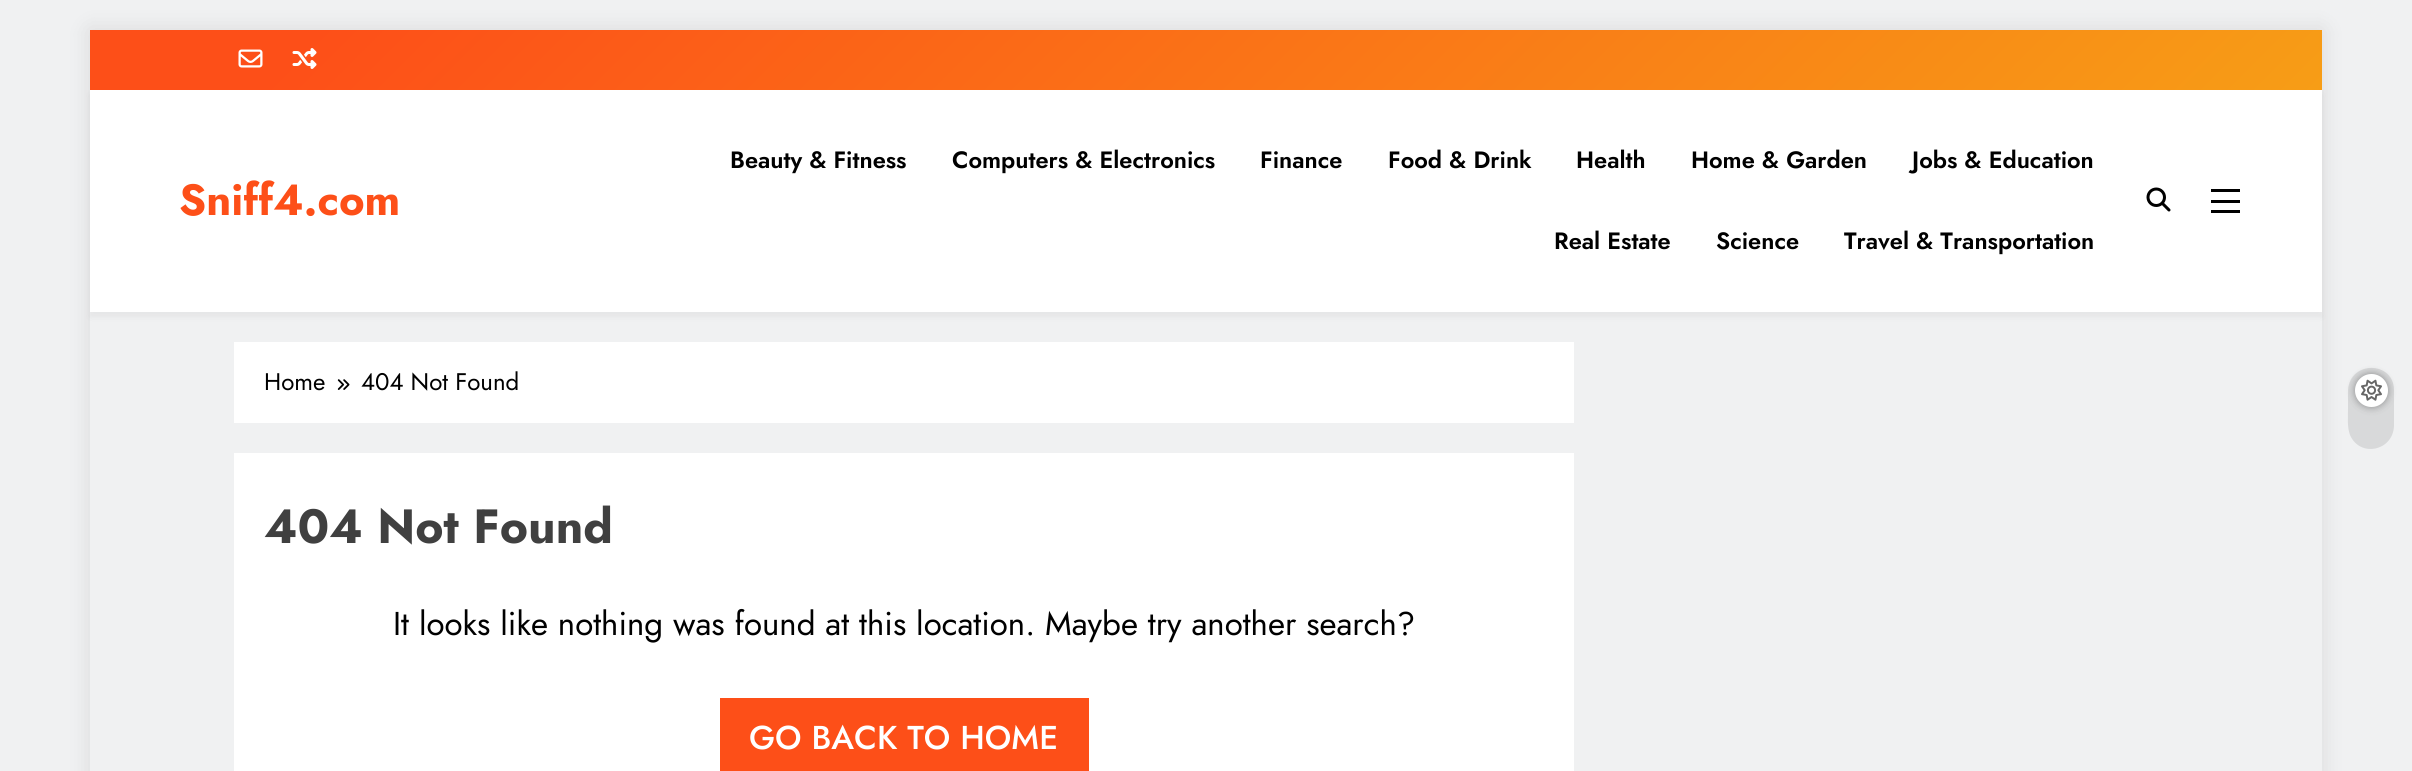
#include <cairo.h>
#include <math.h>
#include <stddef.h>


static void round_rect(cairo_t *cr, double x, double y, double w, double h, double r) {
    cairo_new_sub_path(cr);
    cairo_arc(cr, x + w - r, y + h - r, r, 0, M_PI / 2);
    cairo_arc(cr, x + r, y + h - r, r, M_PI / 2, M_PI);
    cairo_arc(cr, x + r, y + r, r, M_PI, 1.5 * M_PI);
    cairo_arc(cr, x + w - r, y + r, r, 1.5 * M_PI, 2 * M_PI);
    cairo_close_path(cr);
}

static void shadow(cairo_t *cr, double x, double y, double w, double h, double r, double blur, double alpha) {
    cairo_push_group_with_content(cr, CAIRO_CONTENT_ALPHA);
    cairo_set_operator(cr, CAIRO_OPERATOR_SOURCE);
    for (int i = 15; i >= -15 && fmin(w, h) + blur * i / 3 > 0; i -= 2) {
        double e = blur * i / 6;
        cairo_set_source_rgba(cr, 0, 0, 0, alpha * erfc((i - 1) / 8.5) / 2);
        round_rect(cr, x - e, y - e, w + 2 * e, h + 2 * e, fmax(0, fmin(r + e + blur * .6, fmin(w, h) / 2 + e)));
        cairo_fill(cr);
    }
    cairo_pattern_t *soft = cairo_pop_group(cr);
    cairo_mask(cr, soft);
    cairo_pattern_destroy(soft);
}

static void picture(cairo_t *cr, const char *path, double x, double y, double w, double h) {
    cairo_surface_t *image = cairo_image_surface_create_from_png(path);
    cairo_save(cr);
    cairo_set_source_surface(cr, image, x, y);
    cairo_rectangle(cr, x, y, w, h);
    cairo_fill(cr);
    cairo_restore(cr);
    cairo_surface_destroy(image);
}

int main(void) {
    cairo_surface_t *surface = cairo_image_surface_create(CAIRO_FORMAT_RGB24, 2412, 771);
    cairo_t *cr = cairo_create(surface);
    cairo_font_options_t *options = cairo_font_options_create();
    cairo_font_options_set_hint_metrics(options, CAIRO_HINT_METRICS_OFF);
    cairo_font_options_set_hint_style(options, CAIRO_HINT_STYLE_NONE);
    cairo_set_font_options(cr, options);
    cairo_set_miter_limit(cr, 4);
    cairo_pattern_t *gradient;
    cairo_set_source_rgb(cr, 0.941, 0.945, 0.949);
    cairo_paint(cr);
    cairo_save(cr);
    cairo_set_fill_rule(cr, CAIRO_FILL_RULE_EVEN_ODD);
    cairo_new_path(cr);
    cairo_move_to(cr, 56, 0);
    cairo_line_to(cr, 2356, 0);
    cairo_line_to(cr, 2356, 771);
    cairo_line_to(cr, 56, 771);
    cairo_close_path(cr);
    cairo_move_to(cr, 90, 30);
    cairo_line_to(cr, 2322, 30);
    cairo_line_to(cr, 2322, 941);
    cairo_line_to(cr, 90, 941);
    cairo_close_path(cr);
    cairo_clip(cr);
    cairo_set_source_rgb(cr, 0, 0, 0);
    shadow(cr, 90, 30, 2232, 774, 0, 11, 0.1);
    cairo_restore(cr);
    gradient = cairo_pattern_create_linear(633, -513, 1779, 633);
    cairo_pattern_add_color_stop_rgba(gradient, 0.1, 0.992, 0.31, 0.094, 1);
    cairo_pattern_add_color_stop_rgba(gradient, 1, 0.969, 0.616, 0.086, 1);
    cairo_set_source(cr, gradient);
    cairo_pattern_destroy(gradient);
    cairo_rectangle(cr, 90, 30, 2232, 60);
    cairo_fill(cr);
    picture(cr, "img1.png", 238, 49, 25, 19);
    picture(cr, "img2.png", 292, 48, 25, 21);
    cairo_set_source_rgb(cr, 0, 0, 0);
    shadow(cr, 90, 95, 2232, 222, 0, 3, 0.05);
    cairo_set_source_rgb(cr, 1, 1, 1);
    cairo_rectangle(cr, 90, 90, 2232, 222);
    cairo_fill(cr);
    cairo_select_font_face(cr, "Jost", CAIRO_FONT_SLANT_NORMAL, CAIRO_FONT_WEIGHT_BOLD);
    cairo_set_font_size(cr, 43.5);
    cairo_set_source_rgb(cr, 0.992, 0.31, 0.094);
    cairo_move_to(cr, 179, 215);
    cairo_show_text(cr, "Sniff4.com");
    cairo_select_font_face(cr, "Jost SemiBold", CAIRO_FONT_SLANT_NORMAL, CAIRO_FONT_WEIGHT_NORMAL);
    cairo_set_font_size(cr, 23.6);
    cairo_set_source_rgb(cr, 0, 0, 0);
    cairo_move_to(cr, 730, 168);
    cairo_show_text(cr, "Beauty & Fitness");
    cairo_move_to(cr, 952, 168);
    cairo_show_text(cr, "Computers & Electronics");
    cairo_move_to(cr, 1260, 168);
    cairo_show_text(cr, "Finance");
    cairo_move_to(cr, 1388, 168);
    cairo_show_text(cr, "Food & Drink");
    cairo_move_to(cr, 1576, 168);
    cairo_show_text(cr, "Health");
    cairo_move_to(cr, 1691, 168);
    cairo_show_text(cr, "Home & Garden");
    cairo_move_to(cr, 1912, 168);
    cairo_show_text(cr, "Jobs & Education");
    cairo_move_to(cr, 1554, 249);
    cairo_show_text(cr, "Real Estate");
    cairo_move_to(cr, 1716, 249);
    cairo_show_text(cr, "Science");
    cairo_move_to(cr, 1844, 249);
    cairo_show_text(cr, "Travel & Transportation");
    picture(cr, "img3.png", 2146, 187, 25, 25);
    cairo_rectangle(cr, 2211, 189, 29, 3);
    cairo_fill(cr);
    cairo_rectangle(cr, 2211, 200, 29, 3);
    cairo_fill(cr);
    cairo_rectangle(cr, 2211, 210, 29, 3);
    cairo_fill(cr);
    cairo_set_source_rgb(cr, 0.847, 0.851, 0.855);
    cairo_new_path(cr);
    cairo_move_to(cr, 2394, 390);
    cairo_line_to(cr, 2394, 426);
    cairo_curve_to(cr, 2393, 451, 2360, 458, 2350, 435);
    cairo_curve_to(cr, 2347, 427, 2348, 417, 2348, 408);
    cairo_line_to(cr, 2348, 390);
    cairo_curve_to(cr, 2350, 360, 2394, 361, 2394, 390);
    cairo_close_path(cr);
    cairo_fill(cr);
    cairo_set_source_rgb(cr, 0, 0, 0);
    shadow(cr, 2355, 374, 33, 33, 16.5, 4, 0.35);
    cairo_set_source_rgb(cr, 1, 1, 1);
    cairo_arc(cr, 2371.5, 390.5, 16.5, 0, 2 * M_PI);
    cairo_fill(cr);
    picture(cr, "img4.png", 2361, 379, 21, 22);
    cairo_rectangle(cr, 234, 342, 1340, 81);
    cairo_fill(cr);
    cairo_select_font_face(cr, "Jost", CAIRO_FONT_SLANT_NORMAL, CAIRO_FONT_WEIGHT_NORMAL);
    cairo_set_font_size(cr, 24);
    cairo_set_source_rgb(cr, 0, 0, 0);
    cairo_move_to(cr, 264, 390);
    cairo_show_text(cr, "Home");
    picture(cr, "img5.png", 337, 379, 13, 11);
    cairo_move_to(cr, 361, 390);
    cairo_show_text(cr, "404 Not Found");
    cairo_set_source_rgb(cr, 1, 1, 1);
    cairo_rectangle(cr, 234, 453, 1340, 318);
    cairo_fill(cr);
    cairo_select_font_face(cr, "Jost", CAIRO_FONT_SLANT_NORMAL, CAIRO_FONT_WEIGHT_BOLD);
    cairo_set_font_size(cr, 48);
    cairo_set_source_rgb(cr, 0.251, 0.251, 0.251);
    cairo_move_to(cr, 264, 543);
    cairo_show_text(cr, "404 Not Found");
    cairo_select_font_face(cr, "Jost", CAIRO_FONT_SLANT_NORMAL, CAIRO_FONT_WEIGHT_NORMAL);
    cairo_set_font_size(cr, 33);
    cairo_set_source_rgb(cr, 0, 0, 0);
    cairo_move_to(cr, 393, 635);
    cairo_show_text(cr, "It looks like nothing was found at this location. Maybe try another search?");
    cairo_set_source_rgb(cr, 0.992, 0.31, 0.094);
    cairo_rectangle(cr, 720, 698, 369, 73);
    cairo_fill(cr);
    cairo_select_font_face(cr, "Jost Medium", CAIRO_FONT_SLANT_NORMAL, CAIRO_FONT_WEIGHT_NORMAL);
    cairo_set_source_rgb(cr, 1, 1, 1);
    cairo_move_to(cr, 749, 749);
    cairo_show_text(cr, "GO BACK TO HOME");
    cairo_surface_write_to_png(surface, "page.png");
    cairo_font_options_destroy(options);
    cairo_destroy(cr);
    cairo_surface_destroy(surface);
    return 0;
}
